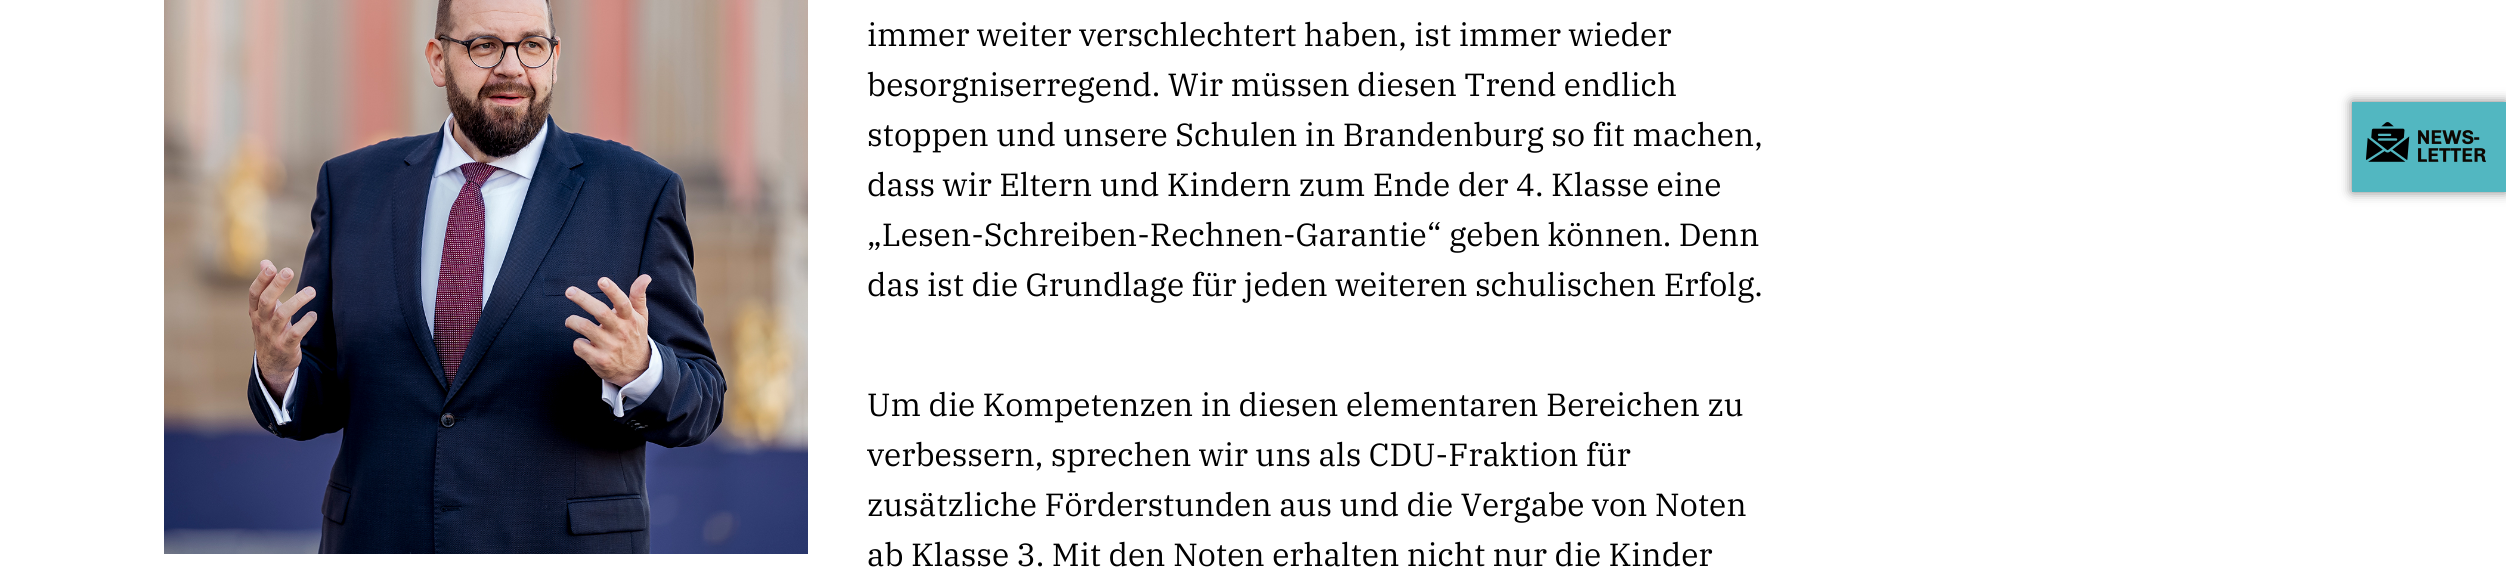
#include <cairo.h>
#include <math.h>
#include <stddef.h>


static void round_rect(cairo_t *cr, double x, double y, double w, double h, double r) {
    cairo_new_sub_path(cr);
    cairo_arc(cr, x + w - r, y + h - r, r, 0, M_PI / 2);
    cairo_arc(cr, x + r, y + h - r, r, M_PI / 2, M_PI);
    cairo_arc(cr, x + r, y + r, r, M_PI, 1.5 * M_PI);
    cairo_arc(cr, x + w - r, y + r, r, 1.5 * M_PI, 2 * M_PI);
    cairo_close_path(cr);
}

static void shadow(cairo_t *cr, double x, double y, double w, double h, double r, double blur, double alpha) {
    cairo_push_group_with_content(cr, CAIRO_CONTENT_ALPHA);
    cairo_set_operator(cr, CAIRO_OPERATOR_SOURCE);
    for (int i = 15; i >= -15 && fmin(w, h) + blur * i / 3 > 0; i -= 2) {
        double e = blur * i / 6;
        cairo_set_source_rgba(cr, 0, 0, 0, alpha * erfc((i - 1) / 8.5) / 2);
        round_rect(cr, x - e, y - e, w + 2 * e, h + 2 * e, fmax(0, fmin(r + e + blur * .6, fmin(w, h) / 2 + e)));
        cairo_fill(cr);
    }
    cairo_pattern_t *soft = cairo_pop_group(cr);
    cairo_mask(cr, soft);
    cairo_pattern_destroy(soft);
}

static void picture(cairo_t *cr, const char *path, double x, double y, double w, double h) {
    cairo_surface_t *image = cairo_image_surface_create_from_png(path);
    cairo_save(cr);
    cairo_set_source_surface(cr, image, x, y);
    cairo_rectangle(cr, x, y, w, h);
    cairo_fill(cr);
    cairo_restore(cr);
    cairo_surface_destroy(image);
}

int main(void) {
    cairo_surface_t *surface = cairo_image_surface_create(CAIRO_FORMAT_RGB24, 2506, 581);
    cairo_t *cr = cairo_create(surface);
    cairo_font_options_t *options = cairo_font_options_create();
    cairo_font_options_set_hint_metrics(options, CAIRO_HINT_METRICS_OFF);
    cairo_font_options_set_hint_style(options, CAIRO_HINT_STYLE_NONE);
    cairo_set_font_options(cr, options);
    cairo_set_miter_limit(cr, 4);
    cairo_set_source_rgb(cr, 1, 1, 1);
    cairo_paint(cr);
    picture(cr, "img1.png", 164, 0, 644, 554);
    cairo_select_font_face(cr, "IBM Plex Serif", CAIRO_FONT_SLANT_NORMAL, CAIRO_FONT_WEIGHT_NORMAL);
    cairo_set_font_size(cr, 32);
    cairo_set_source_rgb(cr, 0, 0, 0);
    cairo_move_to(cr, 867, 46);
    cairo_show_text(cr, "immer weiter verschlechtert haben, ist immer wieder");
    cairo_move_to(cr, 867, 96);
    cairo_show_text(cr, "besorgniserregend. Wir müssen diesen Trend endlich");
    cairo_move_to(cr, 867, 146);
    cairo_show_text(cr, "stoppen und unsere Schulen in Brandenburg so fit machen,");
    cairo_move_to(cr, 867, 196);
    cairo_show_text(cr, "dass wir Eltern und Kindern zum Ende der 4. Klasse eine");
    cairo_move_to(cr, 867, 246);
    cairo_show_text(cr, "„Lesen-Schreiben-Rechnen-Garantie“ geben können. Denn");
    cairo_move_to(cr, 867, 296);
    cairo_show_text(cr, "das ist die Grundlage für jeden weiteren schulischen Erfolg.");
    cairo_move_to(cr, 867, 416);
    cairo_show_text(cr, "Um die Kompetenzen in diesen elementaren Bereichen zu");
    cairo_move_to(cr, 867, 466);
    cairo_show_text(cr, "verbessern, sprechen wir uns als CDU-Fraktion für");
    cairo_move_to(cr, 867, 516);
    cairo_show_text(cr, "zusätzliche Förderstunden aus und die Vergabe von Noten");
    cairo_move_to(cr, 867, 566);
    cairo_show_text(cr, "ab Klasse 3. Mit den Noten erhalten nicht nur die Kinder");
    cairo_set_source_rgb(cr, 0, 0, 0);
    shadow(cr, 2352, 102, 154, 90, 0, 6, 0.5);
    cairo_set_source_rgb(cr, 0.322, 0.718, 0.757);
    cairo_rectangle(cr, 2352, 102, 154, 90);
    cairo_fill(cr);
    picture(cr, "img2.png", 2366, 122, 120, 40);
    cairo_surface_write_to_png(surface, "page.png");
    cairo_font_options_destroy(options);
    cairo_destroy(cr);
    cairo_surface_destroy(surface);
    return 0;
}
